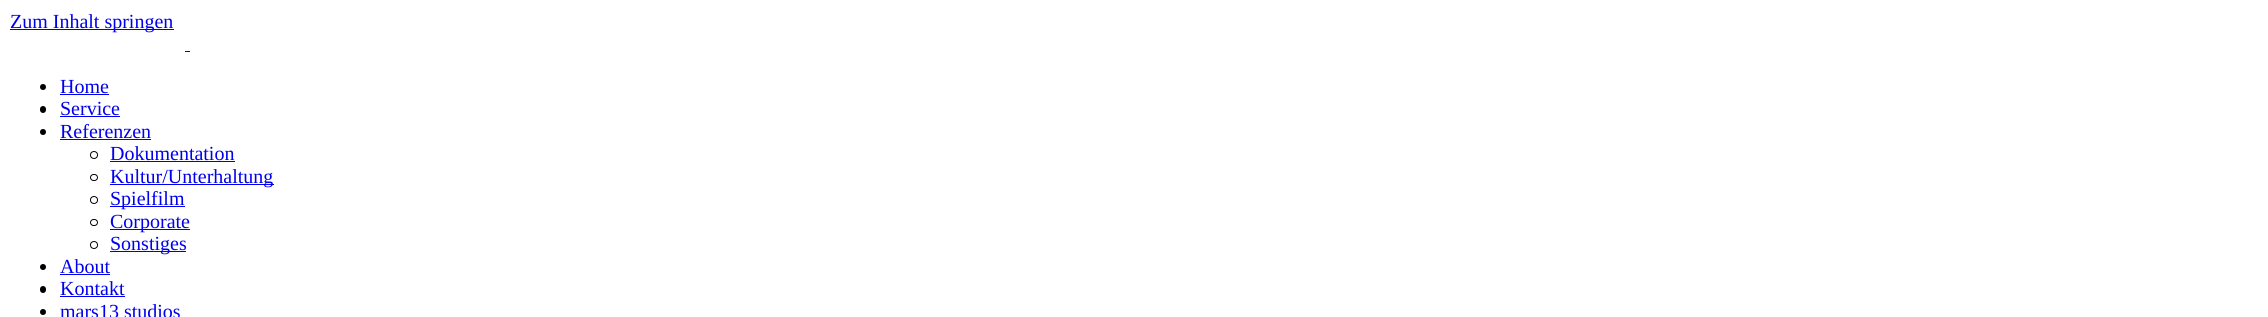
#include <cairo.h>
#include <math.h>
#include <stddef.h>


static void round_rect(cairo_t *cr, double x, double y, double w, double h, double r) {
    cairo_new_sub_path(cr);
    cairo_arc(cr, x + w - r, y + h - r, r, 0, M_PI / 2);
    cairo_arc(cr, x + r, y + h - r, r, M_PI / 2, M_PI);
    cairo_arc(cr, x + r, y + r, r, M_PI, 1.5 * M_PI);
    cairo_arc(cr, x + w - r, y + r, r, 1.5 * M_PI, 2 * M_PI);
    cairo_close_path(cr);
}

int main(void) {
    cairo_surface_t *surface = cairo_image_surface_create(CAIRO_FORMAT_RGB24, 2268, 317);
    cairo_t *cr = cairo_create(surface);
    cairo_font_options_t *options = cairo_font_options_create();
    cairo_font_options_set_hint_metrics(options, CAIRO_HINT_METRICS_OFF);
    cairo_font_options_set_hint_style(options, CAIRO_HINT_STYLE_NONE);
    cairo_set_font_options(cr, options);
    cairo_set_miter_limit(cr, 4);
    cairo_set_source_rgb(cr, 1, 1, 1);
    cairo_paint(cr);
    cairo_set_source_rgb(cr, 0, 0, 0.933);
    cairo_rectangle(cr, 10, 29, 164, 1);
    cairo_fill(cr);
    cairo_select_font_face(cr, "Liberation Serif", CAIRO_FONT_SLANT_NORMAL, CAIRO_FONT_WEIGHT_NORMAL);
    cairo_set_font_size(cr, 20);
    cairo_move_to(cr, 10, 28);
    cairo_show_text(cr, "Zum Inhalt springen");
    cairo_rectangle(cr, 185, 51, 5, 1);
    cairo_fill(cr);
    cairo_set_source_rgb(cr, 0, 0, 0);
    cairo_arc(cr, 43, 87, 3, 0, 2 * M_PI);
    cairo_fill(cr);
    cairo_set_source_rgb(cr, 0, 0, 0.933);
    cairo_move_to(cr, 60, 93);
    cairo_show_text(cr, "Home");
    cairo_rectangle(cr, 60, 94, 49, 1);
    cairo_fill(cr);
    cairo_set_source_rgb(cr, 0, 0, 0);
    round_rect(cr, 40, 106, 6, 7, 3);
    cairo_fill(cr);
    cairo_set_source_rgb(cr, 0, 0, 0.933);
    cairo_move_to(cr, 60, 115);
    cairo_show_text(cr, "Service");
    cairo_rectangle(cr, 60, 116, 60, 1);
    cairo_fill(cr);
    cairo_set_source_rgb(cr, 0, 0, 0);
    cairo_arc(cr, 43, 132, 3, 0, 2 * M_PI);
    cairo_fill(cr);
    cairo_set_source_rgb(cr, 0, 0, 0.933);
    cairo_move_to(cr, 60, 138);
    cairo_show_text(cr, "Referenzen");
    cairo_rectangle(cr, 60, 139, 91, 1);
    cairo_fill(cr);
    cairo_arc(cr, 94, 155, 3.5, 0, 2 * M_PI);
    cairo_set_source_rgb(cr, 0, 0, 0);
    cairo_set_line_width(cr, 1);
    cairo_stroke(cr);
    cairo_set_source_rgb(cr, 0, 0, 0.933);
    cairo_move_to(cr, 110, 160);
    cairo_show_text(cr, "Dokumentation");
    cairo_rectangle(cr, 110, 161, 125, 1);
    cairo_fill(cr);
    round_rect(cr, 90.5, 174.5, 7, 6, 3);
    cairo_set_source_rgb(cr, 0, 0, 0);
    cairo_stroke(cr);
    cairo_set_source_rgb(cr, 0, 0, 0.933);
    cairo_rectangle(cr, 110, 184, 164, 1);
    cairo_fill(cr);
    cairo_move_to(cr, 110, 183);
    cairo_show_text(cr, "Kultur/Unterhaltung");
    cairo_new_path(cr);
    cairo_arc(cr, 94, 200, 3.5, 0, 2 * M_PI);
    cairo_set_source_rgb(cr, 0, 0, 0);
    cairo_stroke(cr);
    cairo_set_source_rgb(cr, 0, 0, 0.933);
    cairo_rectangle(cr, 110, 206, 75, 1);
    cairo_fill(cr);
    cairo_move_to(cr, 110, 205);
    cairo_show_text(cr, "Spielfilm");
    round_rect(cr, 90.5, 219.5, 7, 6, 3);
    cairo_set_source_rgb(cr, 0, 0, 0);
    cairo_stroke(cr);
    cairo_set_source_rgb(cr, 0, 0, 0.933);
    cairo_rectangle(cr, 110, 229, 80, 1);
    cairo_fill(cr);
    cairo_move_to(cr, 110, 228);
    cairo_show_text(cr, "Corporate");
    cairo_new_path(cr);
    cairo_arc(cr, 94, 245, 3.5, 0, 2 * M_PI);
    cairo_set_source_rgb(cr, 0, 0, 0);
    cairo_stroke(cr);
    cairo_set_source_rgb(cr, 0, 0, 0.933);
    cairo_rectangle(cr, 110, 251, 76, 1);
    cairo_fill(cr);
    cairo_move_to(cr, 110, 250);
    cairo_show_text(cr, "Sonstiges");
    cairo_set_source_rgb(cr, 0, 0, 0);
    cairo_new_path(cr);
    cairo_arc(cr, 43, 267, 3, 0, 2 * M_PI);
    cairo_fill(cr);
    cairo_set_source_rgb(cr, 0, 0, 0.933);
    cairo_move_to(cr, 60, 273);
    cairo_show_text(cr, "About");
    cairo_rectangle(cr, 60, 274, 50, 1);
    cairo_fill(cr);
    cairo_set_source_rgb(cr, 0, 0, 0);
    round_rect(cr, 40, 286, 6, 7, 3);
    cairo_fill(cr);
    cairo_set_source_rgb(cr, 0, 0, 0.933);
    cairo_move_to(cr, 60, 295);
    cairo_show_text(cr, "Kontakt");
    cairo_rectangle(cr, 60, 296, 65, 1);
    cairo_fill(cr);
    cairo_set_source_rgb(cr, 0, 0, 0);
    cairo_arc(cr, 43, 312, 3, 0, 2 * M_PI);
    cairo_fill(cr);
    cairo_set_source_rgb(cr, 0, 0, 0.933);
    cairo_move_to(cr, 60, 318);
    cairo_show_text(cr, "mars13 studios");
    cairo_surface_write_to_png(surface, "page.png");
    cairo_font_options_destroy(options);
    cairo_destroy(cr);
    cairo_surface_destroy(surface);
    return 0;
}
